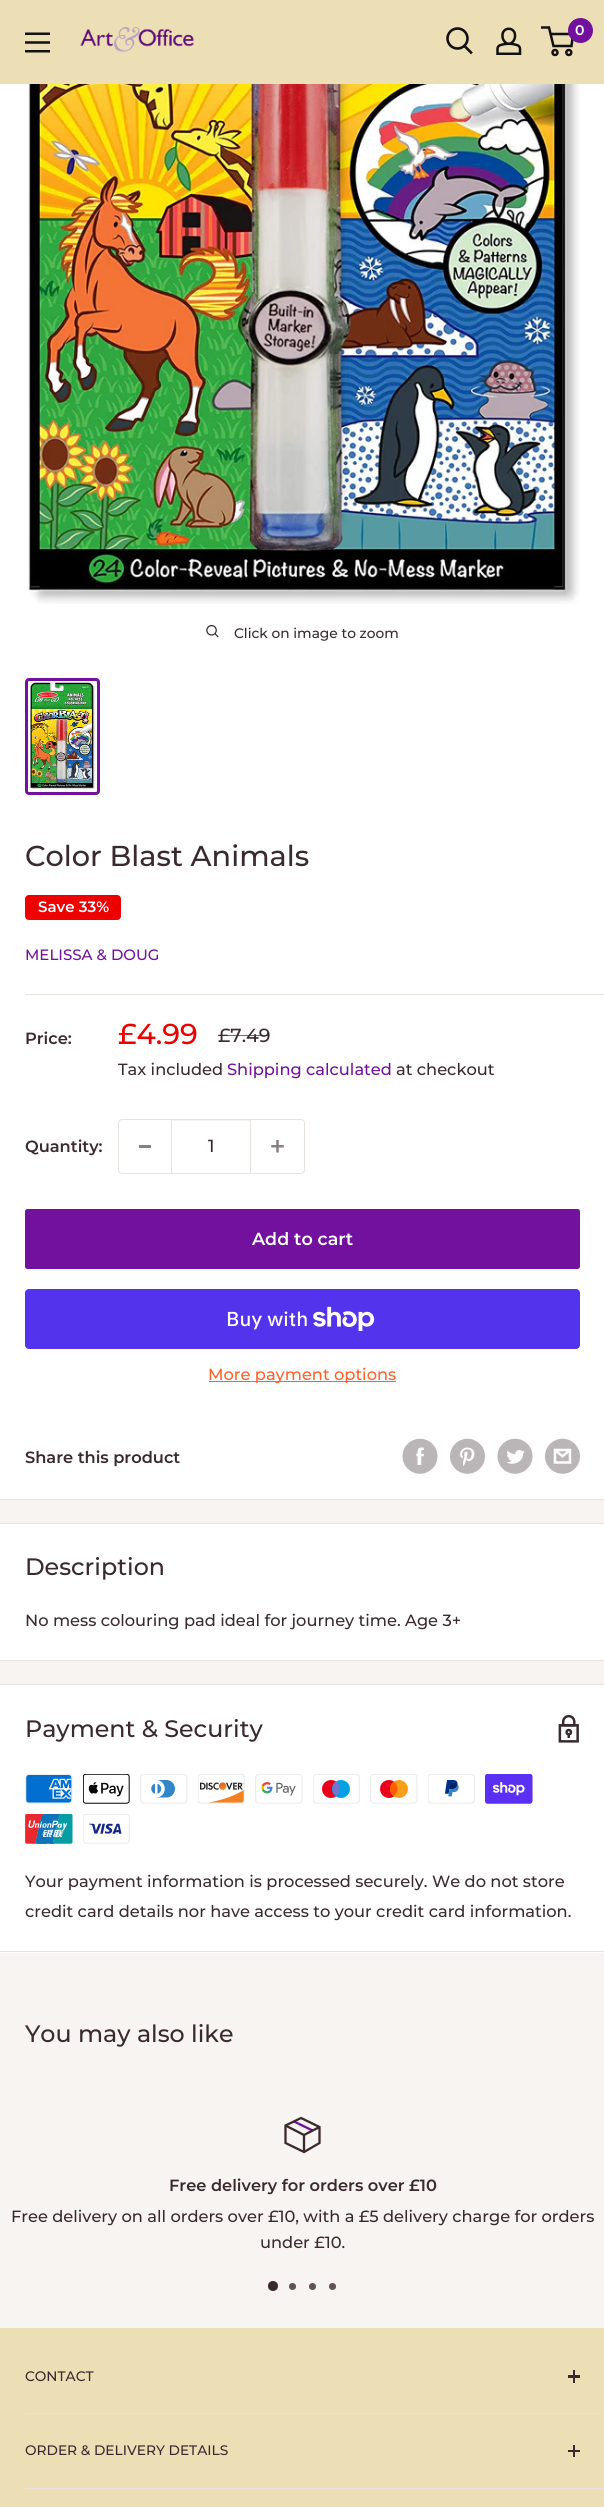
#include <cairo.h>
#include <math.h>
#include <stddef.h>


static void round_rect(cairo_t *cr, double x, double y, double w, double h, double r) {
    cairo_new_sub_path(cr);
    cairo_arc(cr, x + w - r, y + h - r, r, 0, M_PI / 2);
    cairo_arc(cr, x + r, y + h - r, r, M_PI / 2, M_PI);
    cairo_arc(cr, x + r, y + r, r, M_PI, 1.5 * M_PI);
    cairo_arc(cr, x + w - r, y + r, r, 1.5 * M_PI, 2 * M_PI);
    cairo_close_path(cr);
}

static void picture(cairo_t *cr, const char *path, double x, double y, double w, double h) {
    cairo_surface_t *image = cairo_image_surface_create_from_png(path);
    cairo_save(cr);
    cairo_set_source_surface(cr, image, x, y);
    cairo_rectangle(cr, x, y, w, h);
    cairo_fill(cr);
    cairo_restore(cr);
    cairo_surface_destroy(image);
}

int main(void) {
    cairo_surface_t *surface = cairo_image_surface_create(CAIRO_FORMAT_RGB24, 604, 2507);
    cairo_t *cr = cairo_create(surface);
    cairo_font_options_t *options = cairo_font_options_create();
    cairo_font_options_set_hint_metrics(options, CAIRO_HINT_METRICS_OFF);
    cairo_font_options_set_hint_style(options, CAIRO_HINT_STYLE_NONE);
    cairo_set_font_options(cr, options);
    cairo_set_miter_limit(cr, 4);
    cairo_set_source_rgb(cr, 0.969, 0.957, 0.949);
    cairo_paint(cr);
    cairo_set_source_rgb(cr, 0.929, 0.875, 0.71);
    cairo_rectangle(cr, 0, 0, 604, 84);
    cairo_fill(cr);
    picture(cr, "img1.png", 25, 32, 25, 21);
    picture(cr, "img2.png", 80, 26, 114, 26);
    cairo_new_path(cr);
    cairo_move_to(cr, 471, 52.5);
    cairo_line_to(cr, 464.5, 46);
    cairo_set_source_rgb(cr, 0.071, 0.067, 0.067);
    cairo_set_line_width(cr, 2.6);
    cairo_set_line_cap(cr, CAIRO_LINE_CAP_SQUARE);
    cairo_stroke(cr);
    cairo_arc(cr, 457.5, 38.5, 10, 0, 2 * M_PI);
    cairo_set_line_cap(cr, CAIRO_LINE_CAP_BUTT);
    cairo_stroke(cr);
    picture(cr, "img3.png", 496, 27, 26, 28);
    cairo_arc(cr, 555, 52.5, 2.5, 0, 2 * M_PI);
    cairo_set_line_width(cr, 2.5);
    cairo_stroke(cr);
    cairo_arc(cr, 568.8, 52.5, 2.5, 0, 2 * M_PI);
    cairo_stroke(cr);
    cairo_new_path(cr);
    cairo_move_to(cr, 550.5, 34);
    cairo_line_to(cr, 573, 34);
    cairo_line_to(cr, 571.5, 46);
    cairo_line_to(cr, 553.5, 46);
    cairo_line_to(cr, 549, 27.5);
    cairo_line_to(cr, 541, 27.5);
    cairo_stroke(cr);
    cairo_set_source_rgb(cr, 0.443, 0.067, 0.616);
    cairo_arc(cr, 580.5, 30.5, 12.5, 0, 2 * M_PI);
    cairo_fill(cr);
    cairo_select_font_face(cr, "Montserrat SemiBold", CAIRO_FONT_SLANT_NORMAL, CAIRO_FONT_WEIGHT_NORMAL);
    cairo_set_font_size(cr, 14);
    cairo_set_source_rgb(cr, 1, 1, 1);
    cairo_move_to(cr, 575, 35);
    cairo_show_text(cr, "0");
    cairo_rectangle(cr, 0, 84, 604, 1415);
    cairo_fill(cr);
    picture(cr, "img4.png", 28, 84, 552, 520);
    picture(cr, "img5.png", 206, 625, 13, 13);
    cairo_select_font_face(cr, "Montserrat Medium", CAIRO_FONT_SLANT_NORMAL, CAIRO_FONT_WEIGHT_NORMAL);
    cairo_set_font_size(cr, 13.75);
    cairo_set_source_rgb(cr, 0.227, 0.165, 0.184);
    cairo_move_to(cr, 234, 638);
    cairo_show_text(cr, "Click on image to zoom");
    round_rect(cr, 26.5, 679.5, 72, 114, 2.5);
    cairo_set_source_rgb(cr, 0.443, 0.067, 0.616);
    cairo_set_line_width(cr, 3);
    cairo_stroke(cr);
    picture(cr, "img6.png", 30, 682, 65, 108);
    cairo_set_source_rgb(cr, 0.906, 0.886, 0.871);
    cairo_rectangle(cr, 0, 1499, 604, 1);
    cairo_fill(cr);
    cairo_set_font_size(cr, 28.75);
    cairo_set_source_rgb(cr, 0.227, 0.165, 0.184);
    cairo_move_to(cr, 25, 866);
    cairo_show_text(cr, "Color Blast Animals");
    cairo_set_source_rgb(cr, 0.933, 0, 0);
    round_rect(cr, 25, 895, 96, 25, 4);
    cairo_fill(cr);
    cairo_select_font_face(cr, "Montserrat SemiBold", CAIRO_FONT_SLANT_NORMAL, CAIRO_FONT_WEIGHT_NORMAL);
    cairo_set_font_size(cr, 15);
    cairo_set_source_rgb(cr, 1, 1, 1);
    cairo_move_to(cr, 38, 912);
    cairo_show_text(cr, "Save 33%");
    cairo_select_font_face(cr, "Montserrat Medium", CAIRO_FONT_SLANT_NORMAL, CAIRO_FONT_WEIGHT_NORMAL);
    cairo_set_source_rgb(cr, 0.443, 0.067, 0.616);
    cairo_move_to(cr, 25, 960);
    cairo_show_text(cr, "MELISSA & DOUG");
    cairo_set_source_rgb(cr, 0.906, 0.886, 0.871);
    cairo_rectangle(cr, 25, 994, 579, 1);
    cairo_fill(cr);
    cairo_select_font_face(cr, "Montserrat SemiBold", CAIRO_FONT_SLANT_NORMAL, CAIRO_FONT_WEIGHT_NORMAL);
    cairo_set_font_size(cr, 16.25);
    cairo_set_source_rgb(cr, 0.227, 0.165, 0.184);
    cairo_move_to(cr, 25, 1044);
    cairo_show_text(cr, "Price:");
    cairo_select_font_face(cr, "Montserrat Medium", CAIRO_FONT_SLANT_NORMAL, CAIRO_FONT_WEIGHT_NORMAL);
    cairo_set_font_size(cr, 28.75);
    cairo_set_source_rgb(cr, 0.933, 0, 0);
    cairo_move_to(cr, 118, 1044);
    cairo_show_text(cr, "£4.99");
    cairo_set_font_size(cr, 19);
    cairo_set_source_rgb(cr, 0.227, 0.165, 0.184);
    cairo_move_to(cr, 218, 1042);
    cairo_show_text(cr, "£7.49");
    cairo_set_source_rgba(cr, 0.227, 0.165, 0.184, 0.7);
    cairo_rectangle(cr, 218, 1035, 51, 1);
    cairo_fill(cr);
    cairo_set_font_size(cr, 16.25);
    cairo_set_source_rgb(cr, 0.227, 0.165, 0.184);
    cairo_move_to(cr, 118, 1075);
    cairo_show_text(cr, "Tax included");
    cairo_set_source_rgb(cr, 0.443, 0.067, 0.616);
    cairo_move_to(cr, 227, 1075);
    cairo_show_text(cr, "Shipping calculated");
    cairo_set_source_rgb(cr, 0.227, 0.165, 0.184);
    cairo_move_to(cr, 396, 1075);
    cairo_show_text(cr, "at checkout");
    cairo_select_font_face(cr, "Montserrat SemiBold", CAIRO_FONT_SLANT_NORMAL, CAIRO_FONT_WEIGHT_NORMAL);
    cairo_move_to(cr, 25, 1152);
    cairo_show_text(cr, "Quantity:");
    round_rect(cr, 118.5, 1119.5, 186, 54, 3.5);
    cairo_set_source_rgb(cr, 0.906, 0.886, 0.871);
    cairo_set_line_width(cr, 1);
    cairo_stroke(cr);
    cairo_set_source_rgb(cr, 0.537, 0.498, 0.51);
    cairo_rectangle(cr, 139, 1145, 12, 3);
    cairo_fill(cr);
    cairo_set_source_rgb(cr, 0.961, 0.953, 0.949);
    cairo_rectangle(cr, 173, 1120, 77, 1);
    cairo_fill(cr);
    cairo_set_source_rgb(cr, 0.906, 0.886, 0.871);
    cairo_rectangle(cr, 250, 1120, 1, 53);
    cairo_fill(cr);
    cairo_rectangle(cr, 171, 1120, 1, 53);
    cairo_fill(cr);
    cairo_select_font_face(cr, "Montserrat Medium", CAIRO_FONT_SLANT_NORMAL, CAIRO_FONT_WEIGHT_NORMAL);
    cairo_set_font_size(cr, 17.5);
    cairo_set_source_rgb(cr, 0.227, 0.165, 0.184);
    cairo_move_to(cr, 208, 1152);
    cairo_show_text(cr, "1");
    picture(cr, "img7.png", 271, 1140, 13, 13);
    cairo_set_source_rgb(cr, 0.443, 0.067, 0.616);
    round_rect(cr, 25, 1209, 555, 60, 2.5);
    cairo_fill(cr);
    cairo_select_font_face(cr, "Montserrat SemiBold", CAIRO_FONT_SLANT_NORMAL, CAIRO_FONT_WEIGHT_NORMAL);
    cairo_set_source_rgb(cr, 1, 1, 1);
    cairo_move_to(cr, 252, 1245);
    cairo_show_text(cr, "Add to cart");
    cairo_set_source_rgb(cr, 0.329, 0.2, 0.922);
    round_rect(cr, 25, 1289, 555, 60, 4);
    cairo_fill(cr);
    cairo_select_font_face(cr, "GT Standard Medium", CAIRO_FONT_SLANT_NORMAL, CAIRO_FONT_WEIGHT_NORMAL);
    cairo_set_font_size(cr, 20);
    cairo_set_source_rgb(cr, 1, 1, 1);
    cairo_move_to(cr, 226, 1326);
    cairo_show_text(cr, "Buy with");
    picture(cr, "img8.png", 313, 1306, 62, 25);
    cairo_set_source_rgb(cr, 1, 0.38, 0.157);
    cairo_rectangle(cr, 209, 1381, 187, 1);
    cairo_fill(cr);
    cairo_select_font_face(cr, "Montserrat Medium", CAIRO_FONT_SLANT_NORMAL, CAIRO_FONT_WEIGHT_NORMAL);
    cairo_set_font_size(cr, 16.25);
    cairo_move_to(cr, 208, 1380);
    cairo_show_text(cr, "More payment options");
    cairo_select_font_face(cr, "Montserrat SemiBold", CAIRO_FONT_SLANT_NORMAL, CAIRO_FONT_WEIGHT_NORMAL);
    cairo_set_source_rgb(cr, 0.227, 0.165, 0.184);
    cairo_move_to(cr, 25, 1463);
    cairo_show_text(cr, "Share this product");
    picture(cr, "img9.png", 402, 1438, 36, 36);
    picture(cr, "img10.png", 450, 1438, 35, 36);
    picture(cr, "img11.png", 497, 1438, 36, 36);
    picture(cr, "img12.png", 545, 1438, 35, 36);
    cairo_set_source_rgb(cr, 1, 1, 1);
    cairo_rectangle(cr, 0, 1524, 604, 136);
    cairo_fill(cr);
    cairo_set_source_rgb(cr, 0.906, 0.886, 0.871);
    cairo_rectangle(cr, 0, 1523, 604, 1);
    cairo_fill(cr);
    cairo_rectangle(cr, 0, 1660, 604, 1);
    cairo_fill(cr);
    cairo_select_font_face(cr, "Montserrat Medium", CAIRO_FONT_SLANT_NORMAL, CAIRO_FONT_WEIGHT_NORMAL);
    cairo_set_font_size(cr, 23.75);
    cairo_set_source_rgb(cr, 0.227, 0.165, 0.184);
    cairo_move_to(cr, 25, 1575);
    cairo_show_text(cr, "Description");
    cairo_set_font_size(cr, 16.25);
    cairo_move_to(cr, 25, 1626);
    cairo_show_text(cr, "No mess colouring pad ideal for journey time. Age 3+");
    cairo_set_source_rgb(cr, 1, 1, 1);
    cairo_rectangle(cr, 0, 1685, 604, 268);
    cairo_fill(cr);
    cairo_set_source_rgb(cr, 0.906, 0.886, 0.871);
    cairo_rectangle(cr, 0, 1684, 604, 1);
    cairo_fill(cr);
    cairo_rectangle(cr, 0, 1951, 604, 1);
    cairo_fill(cr);
    cairo_set_font_size(cr, 23.75);
    cairo_set_source_rgb(cr, 0.227, 0.165, 0.184);
    cairo_move_to(cr, 25, 1737);
    cairo_show_text(cr, "Payment & Security");
    picture(cr, "img13.png", 558, 1714, 21, 29);
    picture(cr, "img14.png", 25, 1774, 48, 30);
    picture(cr, "img15.png", 83, 1774, 47, 30);
    picture(cr, "img16.png", 140, 1774, 48, 30);
    picture(cr, "img17.png", 198, 1774, 47, 30);
    picture(cr, "img18.png", 255, 1774, 48, 30);
    picture(cr, "img19.png", 313, 1774, 47, 30);
    picture(cr, "img20.png", 370, 1774, 48, 30);
    picture(cr, "img21.png", 428, 1774, 47, 30);
    picture(cr, "img22.png", 485, 1774, 48, 30);
    picture(cr, "img23.png", 25, 1814, 48, 30);
    picture(cr, "img24.png", 83, 1814, 47, 30);
    cairo_set_font_size(cr, 16.25);
    cairo_move_to(cr, 25, 1887);
    cairo_show_text(cr, "Your payment information is processed securely. We do not store");
    cairo_move_to(cr, 25, 1917);
    cairo_show_text(cr, "credit card details nor have access to your credit card information.");
    cairo_set_font_size(cr, 23.75);
    cairo_move_to(cr, 25, 2042);
    cairo_show_text(cr, "You may also like");
    cairo_new_path(cr);
    cairo_move_to(cr, 294, 2121.5);
    cairo_line_to(cr, 312.5, 2130.5);
    cairo_set_source_rgb(cr, 0.443, 0.067, 0.616);
    cairo_set_line_width(cr, 2.3);
    cairo_stroke(cr);
    cairo_new_path(cr);
    cairo_move_to(cr, 319.5, 2127);
    cairo_line_to(cr, 304, 2135);
    cairo_line_to(cr, 285.5, 2125.5);
    cairo_move_to(cr, 304, 2135);
    cairo_line_to(cr, 304, 2152);
    cairo_set_source_rgb(cr, 0.227, 0.165, 0.184);
    cairo_stroke(cr);
    cairo_new_path(cr);
    cairo_move_to(cr, 319.5, 2127);
    cairo_line_to(cr, 319.5, 2143);
    cairo_line_to(cr, 304, 2152);
    cairo_line_to(cr, 285.5, 2143);
    cairo_line_to(cr, 285.5, 2125.5);
    cairo_line_to(cr, 301, 2118);
    cairo_close_path(cr);
    cairo_set_line_cap(cr, CAIRO_LINE_CAP_SQUARE);
    cairo_stroke(cr);
    cairo_select_font_face(cr, "Montserrat SemiBold", CAIRO_FONT_SLANT_NORMAL, CAIRO_FONT_WEIGHT_NORMAL);
    cairo_set_font_size(cr, 16.25);
    cairo_move_to(cr, 169, 2191);
    cairo_show_text(cr, "Free delivery for orders over £10");
    cairo_select_font_face(cr, "Montserrat Medium", CAIRO_FONT_SLANT_NORMAL, CAIRO_FONT_WEIGHT_NORMAL);
    cairo_move_to(cr, 11, 2222);
    cairo_show_text(cr, "Free delivery on all orders over £10, with a £5 delivery charge for orders");
    cairo_move_to(cr, 260, 2248);
    cairo_show_text(cr, "under £10.");
    cairo_new_path(cr);
    cairo_arc(cr, 273, 2286, 5, 0, 2 * M_PI);
    cairo_fill(cr);
    cairo_set_source_rgb(cr, 0.376, 0.322, 0.337);
    cairo_arc(cr, 292.5, 2286.5, 3.5, 0, 2 * M_PI);
    cairo_fill(cr);
    cairo_arc(cr, 312.5, 2286.5, 3.5, 0, 2 * M_PI);
    cairo_fill(cr);
    cairo_arc(cr, 332.5, 2286.5, 3.5, 0, 2 * M_PI);
    cairo_fill(cr);
    cairo_set_source_rgb(cr, 0.929, 0.875, 0.71);
    cairo_rectangle(cr, 0, 2328, 604, 179);
    cairo_fill(cr);
    cairo_set_source_rgb(cr, 0.906, 0.886, 0.871);
    cairo_rectangle(cr, 25, 2413, 579, 1);
    cairo_fill(cr);
    cairo_set_font_size(cr, 13.75);
    cairo_set_source_rgb(cr, 0.227, 0.165, 0.184);
    cairo_move_to(cr, 25, 2381);
    cairo_show_text(cr, "CONTACT");
    cairo_rectangle(cr, 573, 2370, 2, 13);
    cairo_fill(cr);
    cairo_rectangle(cr, 568, 2375, 12, 3);
    cairo_fill(cr);
    cairo_set_source_rgb(cr, 0.906, 0.886, 0.871);
    cairo_rectangle(cr, 25, 2488, 579, 1);
    cairo_fill(cr);
    cairo_set_source_rgb(cr, 0.227, 0.165, 0.184);
    cairo_move_to(cr, 25, 2455);
    cairo_show_text(cr, "ORDER & DELIVERY DETAILS");
    cairo_rectangle(cr, 573, 2445, 2, 12);
    cairo_fill(cr);
    cairo_rectangle(cr, 568, 2450, 12, 2);
    cairo_fill(cr);
    cairo_surface_write_to_png(surface, "page.png");
    cairo_font_options_destroy(options);
    cairo_destroy(cr);
    cairo_surface_destroy(surface);
    return 0;
}
